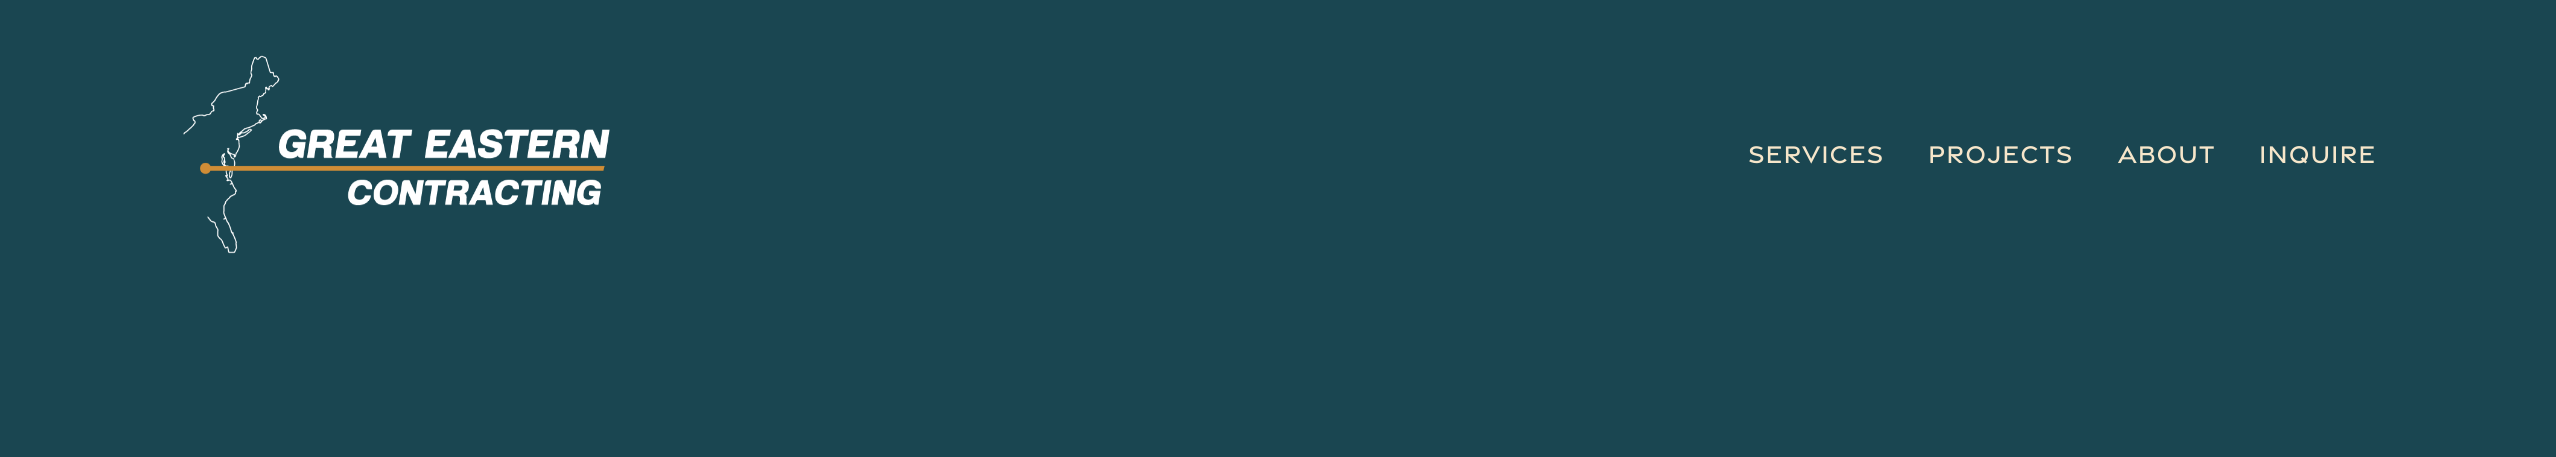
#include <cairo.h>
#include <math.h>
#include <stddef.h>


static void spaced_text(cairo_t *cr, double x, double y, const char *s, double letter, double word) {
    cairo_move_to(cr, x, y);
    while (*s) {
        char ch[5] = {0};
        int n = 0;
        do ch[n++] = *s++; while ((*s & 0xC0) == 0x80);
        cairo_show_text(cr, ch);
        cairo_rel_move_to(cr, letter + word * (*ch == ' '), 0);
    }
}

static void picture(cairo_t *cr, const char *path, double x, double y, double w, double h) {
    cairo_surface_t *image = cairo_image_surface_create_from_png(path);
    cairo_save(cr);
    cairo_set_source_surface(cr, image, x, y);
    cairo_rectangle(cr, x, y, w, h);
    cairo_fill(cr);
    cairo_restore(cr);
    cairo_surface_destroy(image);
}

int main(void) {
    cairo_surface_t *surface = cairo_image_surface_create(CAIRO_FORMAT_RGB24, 2556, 457);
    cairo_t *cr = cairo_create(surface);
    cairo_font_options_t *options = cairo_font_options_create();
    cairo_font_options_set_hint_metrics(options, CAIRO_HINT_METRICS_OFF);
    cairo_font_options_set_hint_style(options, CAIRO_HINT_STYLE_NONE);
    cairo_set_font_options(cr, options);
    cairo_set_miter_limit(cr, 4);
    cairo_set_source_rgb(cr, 0.102, 0.275, 0.318);
    cairo_paint(cr);
    picture(cr, "img1.png", 183, 55, 427, 199);
    cairo_select_font_face(cr, "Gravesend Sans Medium", CAIRO_FONT_SLANT_NORMAL, CAIRO_FONT_WEIGHT_NORMAL);
    cairo_set_font_size(cr, 26);
    cairo_set_source_rgb(cr, 0.961, 0.902, 0.792);
    spaced_text(cr, 1748, 163, "SERVICES", 1, 0);
    spaced_text(cr, 1928, 163, "PROJECTS", 1, 0);
    spaced_text(cr, 2118, 163, "ABOUT", 1, 0);
    spaced_text(cr, 2259, 163, "INQUIRE", 1, 0);
    cairo_surface_write_to_png(surface, "page.png");
    cairo_font_options_destroy(options);
    cairo_destroy(cr);
    cairo_surface_destroy(surface);
    return 0;
}
